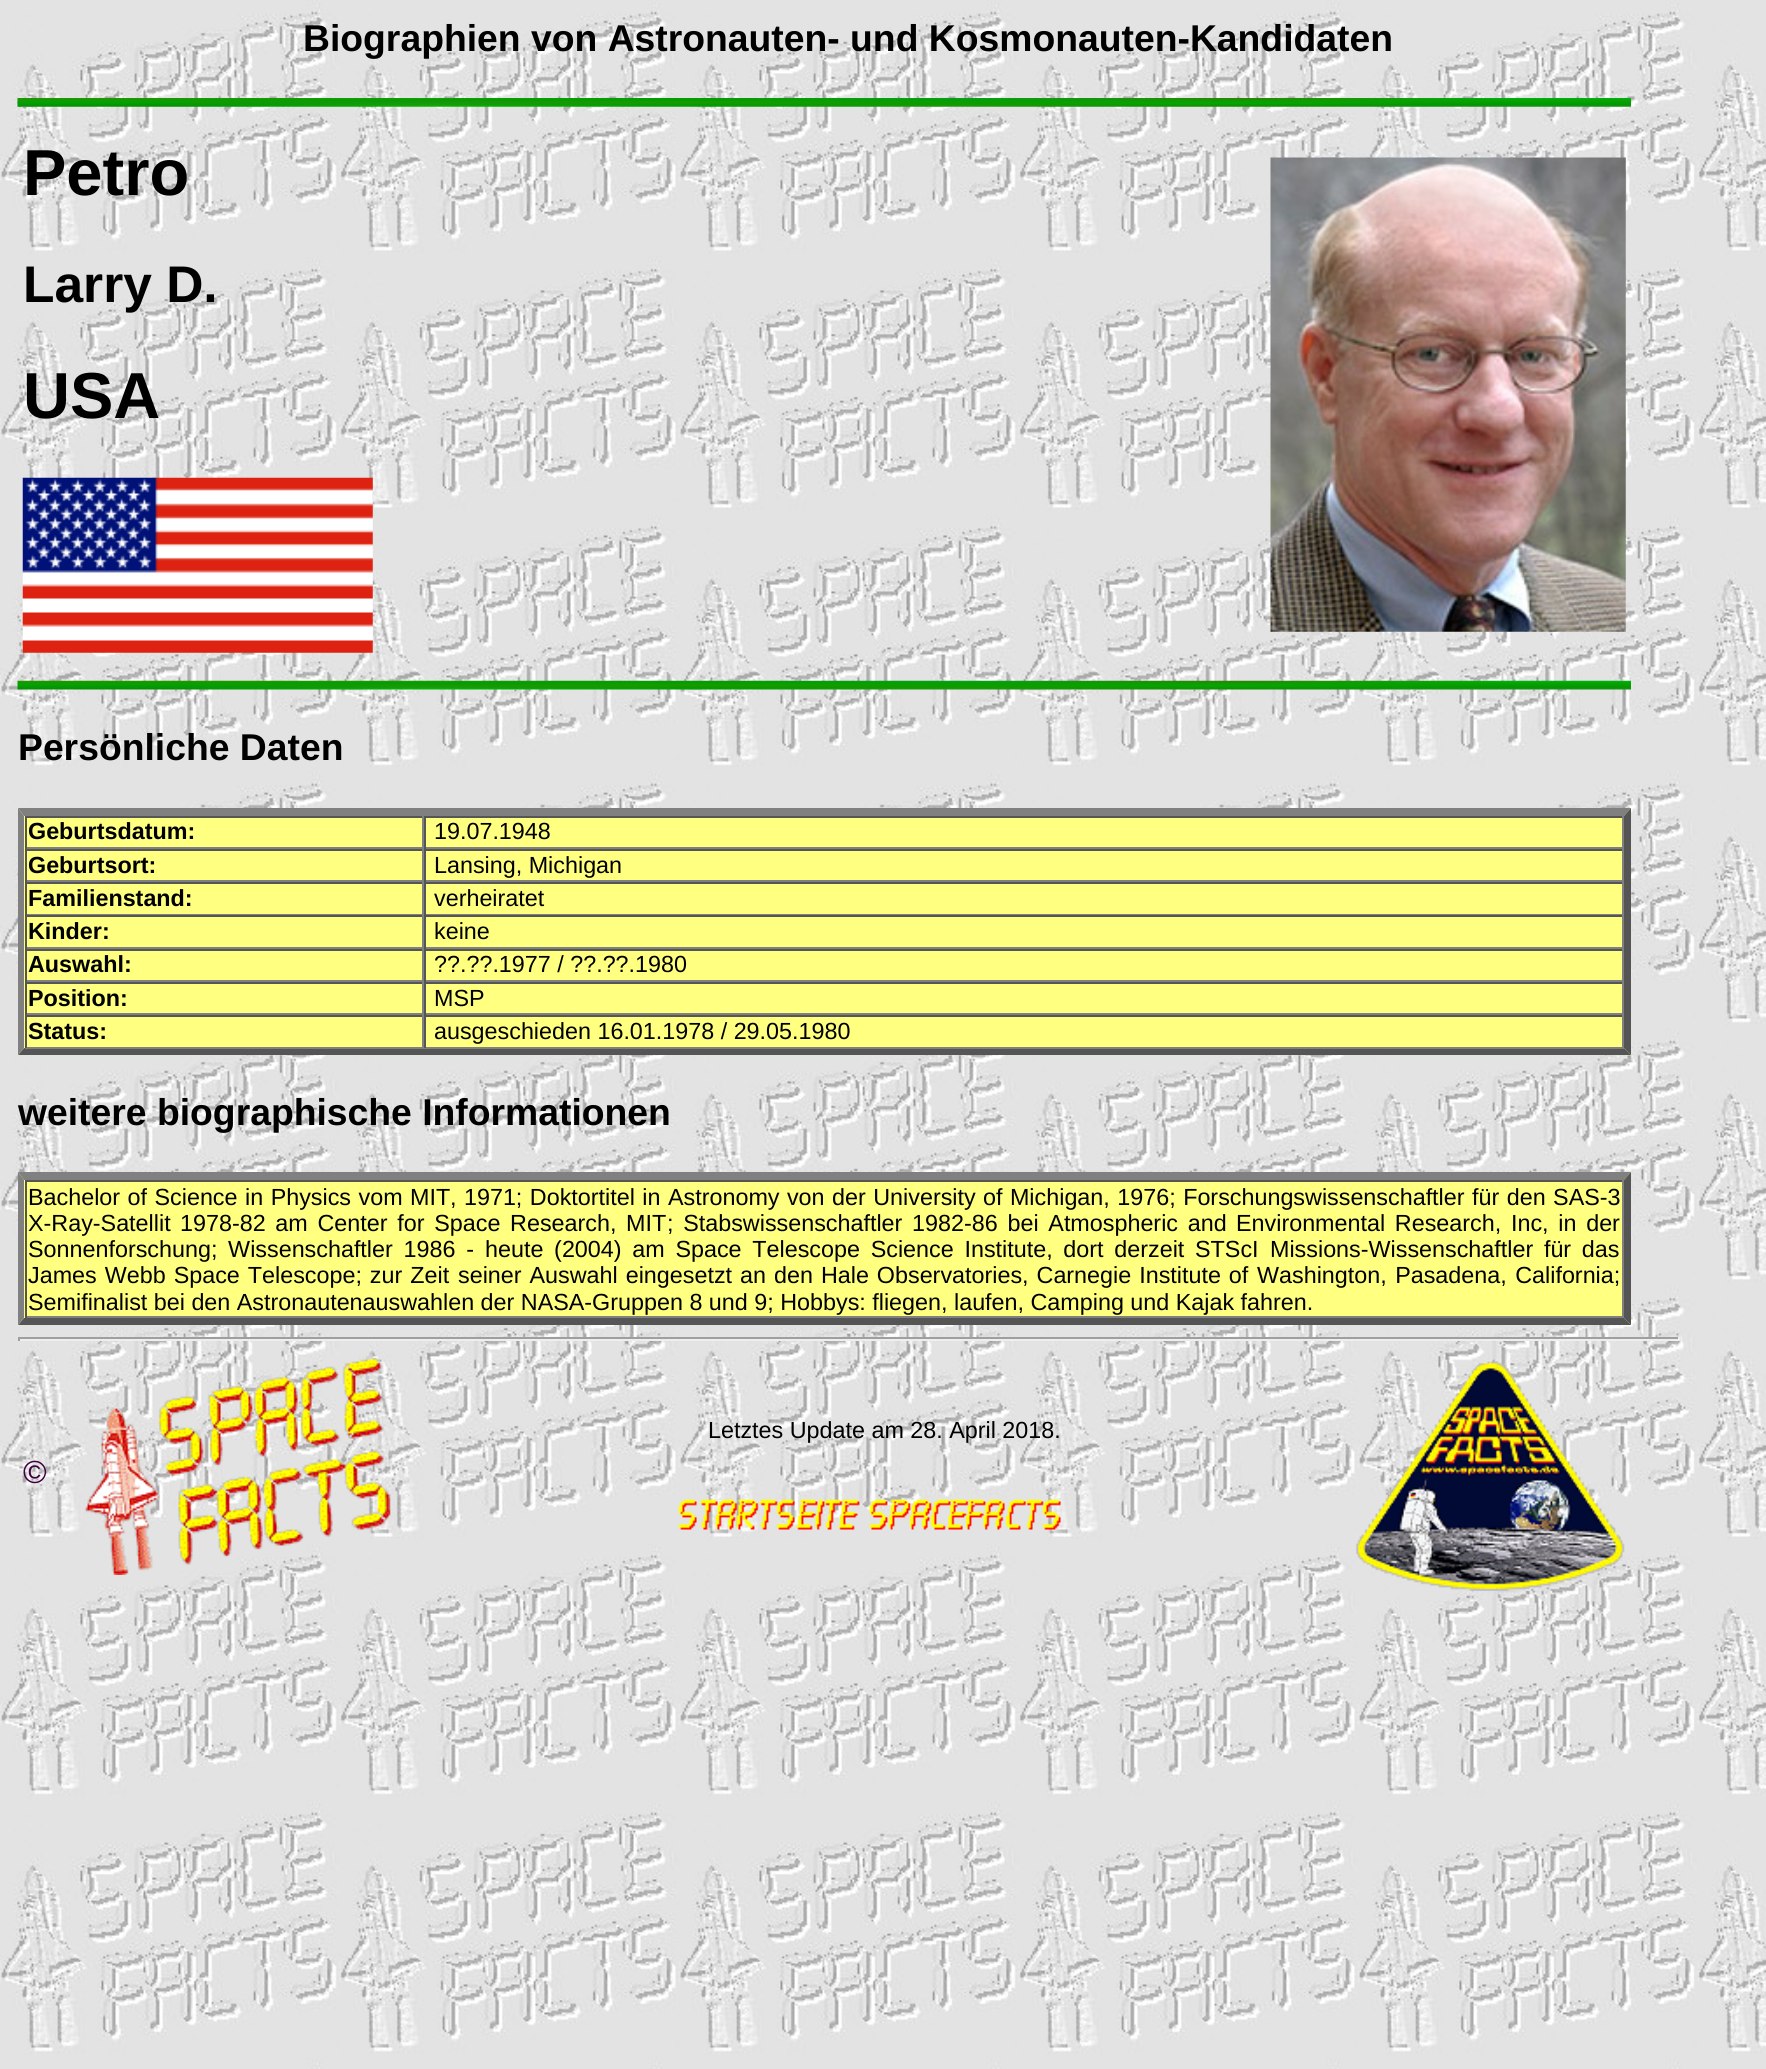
#include <cairo.h>
#include <math.h>
#include <stddef.h>


static void spaced_text(cairo_t *cr, double x, double y, const char *s, double letter, double word) {
    cairo_move_to(cr, x, y);
    while (*s) {
        char ch[5] = {0};
        int n = 0;
        do ch[n++] = *s++; while ((*s & 0xC0) == 0x80);
        cairo_show_text(cr, ch);
        cairo_rel_move_to(cr, letter + word * (*ch == ' '), 0);
    }
}

static void picture(cairo_t *cr, const char *path, double x, double y, double w, double h) {
    cairo_surface_t *image = cairo_image_surface_create_from_png(path);
    cairo_save(cr);
    cairo_set_source_surface(cr, image, x, y);
    cairo_rectangle(cr, x, y, w, h);
    cairo_fill(cr);
    cairo_restore(cr);
    cairo_surface_destroy(image);
}

int main(void) {
    cairo_surface_t *surface = cairo_image_surface_create(CAIRO_FORMAT_RGB24, 1766, 2069);
    cairo_t *cr = cairo_create(surface);
    cairo_font_options_t *options = cairo_font_options_create();
    cairo_font_options_set_hint_metrics(options, CAIRO_HINT_METRICS_OFF);
    cairo_font_options_set_hint_style(options, CAIRO_HINT_STYLE_NONE);
    cairo_set_font_options(cr, options);
    cairo_set_miter_limit(cr, 4);
    cairo_set_source_rgb(cr, 1, 1, 1);
    cairo_paint(cr);
    picture(cr, "img1.png", 0, 0, 1766, 2069);
    cairo_select_font_face(cr, "Liberation Sans", CAIRO_FONT_SLANT_NORMAL, CAIRO_FONT_WEIGHT_BOLD);
    cairo_set_font_size(cr, 37.3);
    cairo_set_source_rgb(cr, 0, 0, 0);
    cairo_move_to(cr, 303, 51);
    cairo_show_text(cr, "Biographien von Astronauten- und Kosmonauten-Kandidaten");
    picture(cr, "img2.png", 17, 98, 1614, 9);
    cairo_set_font_size(cr, 65);
    cairo_move_to(cr, 23, 195);
    cairo_show_text(cr, "Petro");
    cairo_set_font_size(cr, 51.5);
    cairo_move_to(cr, 23, 302);
    cairo_show_text(cr, "Larry D.");
    cairo_set_font_size(cr, 65);
    cairo_move_to(cr, 23, 418);
    cairo_show_text(cr, "USA");
    picture(cr, "img3.png", 22, 477, 351, 176);
    picture(cr, "img4.png", 1270, 157, 356, 475);
    picture(cr, "img5.png", 17, 680, 1614, 10);
    cairo_set_font_size(cr, 37.3);
    cairo_move_to(cr, 18, 760);
    cairo_show_text(cr, "Persönliche Daten");
    cairo_set_source_rgb(cr, 1, 1, 0.502);
    cairo_rectangle(cr, 18, 809, 1613, 246);
    cairo_fill(cr);
    cairo_set_source_rgb(cr, 0.502, 0.502, 0.502);
    cairo_new_path(cr);
    cairo_move_to(cr, 18, 808);
    cairo_line_to(cr, 1631, 808);
    cairo_line_to(cr, 1624, 816);
    cairo_line_to(cr, 24, 816);
    cairo_close_path(cr);
    cairo_fill(cr);
    cairo_set_source_rgb(cr, 0.333, 0.333, 0.333);
    cairo_new_path(cr);
    cairo_move_to(cr, 1631, 808);
    cairo_line_to(cr, 1631, 1055);
    cairo_line_to(cr, 1624, 1048);
    cairo_line_to(cr, 1624, 816);
    cairo_close_path(cr);
    cairo_fill(cr);
    cairo_new_path(cr);
    cairo_move_to(cr, 1631, 1055);
    cairo_line_to(cr, 18, 1055);
    cairo_line_to(cr, 24, 1048);
    cairo_line_to(cr, 1624, 1048);
    cairo_close_path(cr);
    cairo_fill(cr);
    cairo_set_source_rgb(cr, 0.502, 0.502, 0.502);
    cairo_new_path(cr);
    cairo_move_to(cr, 18, 1055);
    cairo_line_to(cr, 18, 808);
    cairo_line_to(cr, 24, 816);
    cairo_line_to(cr, 24, 1048);
    cairo_close_path(cr);
    cairo_fill(cr);
    cairo_set_source_rgb(cr, 0.333, 0.333, 0.333);
    cairo_rectangle(cr, 25, 816, 1599, 2);
    cairo_fill(cr);
    cairo_set_source_rgb(cr, 0.502, 0.502, 0.502);
    cairo_rectangle(cr, 422, 816, 2, 33);
    cairo_fill(cr);
    cairo_rectangle(cr, 25, 847, 399, 2);
    cairo_fill(cr);
    cairo_set_source_rgb(cr, 0.333, 0.333, 0.333);
    cairo_rectangle(cr, 25, 816, 2, 33);
    cairo_fill(cr);
    cairo_set_font_size(cr, 23.33);
    cairo_set_source_rgb(cr, 0, 0, 0);
    cairo_move_to(cr, 28, 839);
    cairo_show_text(cr, "Geburtsdatum:");
    cairo_set_source_rgb(cr, 0.502, 0.502, 0.502);
    cairo_rectangle(cr, 1622, 816, 2, 33);
    cairo_fill(cr);
    cairo_rectangle(cr, 424, 847, 1200, 2);
    cairo_fill(cr);
    cairo_set_source_rgb(cr, 0.333, 0.333, 0.333);
    cairo_rectangle(cr, 424, 816, 2, 33);
    cairo_fill(cr);
    cairo_select_font_face(cr, "Liberation Sans", CAIRO_FONT_SLANT_NORMAL, CAIRO_FONT_WEIGHT_NORMAL);
    cairo_set_source_rgb(cr, 0, 0, 0);
    cairo_move_to(cr, 434, 839);
    cairo_show_text(cr, "19.07.1948");
    cairo_set_source_rgb(cr, 0.333, 0.333, 0.333);
    cairo_rectangle(cr, 25, 849, 1599, 2);
    cairo_fill(cr);
    cairo_set_source_rgb(cr, 0.502, 0.502, 0.502);
    cairo_rectangle(cr, 422, 849, 2, 33);
    cairo_fill(cr);
    cairo_rectangle(cr, 25, 880, 399, 2);
    cairo_fill(cr);
    cairo_set_source_rgb(cr, 0.333, 0.333, 0.333);
    cairo_rectangle(cr, 25, 849, 2, 33);
    cairo_fill(cr);
    cairo_select_font_face(cr, "Liberation Sans", CAIRO_FONT_SLANT_NORMAL, CAIRO_FONT_WEIGHT_BOLD);
    cairo_set_source_rgb(cr, 0, 0, 0);
    cairo_move_to(cr, 28, 873);
    cairo_show_text(cr, "Geburtsort:");
    cairo_set_source_rgb(cr, 0.502, 0.502, 0.502);
    cairo_rectangle(cr, 1622, 849, 2, 33);
    cairo_fill(cr);
    cairo_rectangle(cr, 424, 880, 1200, 2);
    cairo_fill(cr);
    cairo_set_source_rgb(cr, 0.333, 0.333, 0.333);
    cairo_rectangle(cr, 424, 849, 2, 33);
    cairo_fill(cr);
    cairo_select_font_face(cr, "Liberation Sans", CAIRO_FONT_SLANT_NORMAL, CAIRO_FONT_WEIGHT_NORMAL);
    cairo_set_source_rgb(cr, 0, 0, 0);
    cairo_move_to(cr, 434, 873);
    cairo_show_text(cr, "Lansing, Michigan");
    cairo_set_source_rgb(cr, 0.333, 0.333, 0.333);
    cairo_rectangle(cr, 25, 882, 1599, 2);
    cairo_fill(cr);
    cairo_set_source_rgb(cr, 0.502, 0.502, 0.502);
    cairo_rectangle(cr, 422, 882, 2, 33);
    cairo_fill(cr);
    cairo_rectangle(cr, 25, 914, 399, 1);
    cairo_fill(cr);
    cairo_set_source_rgb(cr, 0.333, 0.333, 0.333);
    cairo_rectangle(cr, 25, 882, 2, 33);
    cairo_fill(cr);
    cairo_select_font_face(cr, "Liberation Sans", CAIRO_FONT_SLANT_NORMAL, CAIRO_FONT_WEIGHT_BOLD);
    cairo_set_source_rgb(cr, 0, 0, 0);
    cairo_move_to(cr, 28, 906);
    cairo_show_text(cr, "Familienstand:");
    cairo_set_source_rgb(cr, 0.502, 0.502, 0.502);
    cairo_rectangle(cr, 1622, 882, 2, 33);
    cairo_fill(cr);
    cairo_rectangle(cr, 424, 914, 1200, 1);
    cairo_fill(cr);
    cairo_set_source_rgb(cr, 0.333, 0.333, 0.333);
    cairo_rectangle(cr, 424, 882, 2, 33);
    cairo_fill(cr);
    cairo_select_font_face(cr, "Liberation Sans", CAIRO_FONT_SLANT_NORMAL, CAIRO_FONT_WEIGHT_NORMAL);
    cairo_set_source_rgb(cr, 0, 0, 0);
    cairo_move_to(cr, 434, 906);
    cairo_show_text(cr, "verheiratet");
    cairo_set_source_rgb(cr, 0.333, 0.333, 0.333);
    cairo_rectangle(cr, 25, 915, 1599, 2);
    cairo_fill(cr);
    cairo_set_source_rgb(cr, 0.502, 0.502, 0.502);
    cairo_rectangle(cr, 422, 915, 2, 34);
    cairo_fill(cr);
    cairo_rectangle(cr, 25, 947, 399, 2);
    cairo_fill(cr);
    cairo_set_source_rgb(cr, 0.333, 0.333, 0.333);
    cairo_rectangle(cr, 25, 915, 2, 34);
    cairo_fill(cr);
    cairo_select_font_face(cr, "Liberation Sans", CAIRO_FONT_SLANT_NORMAL, CAIRO_FONT_WEIGHT_BOLD);
    cairo_set_source_rgb(cr, 0, 0, 0);
    cairo_move_to(cr, 28, 939);
    cairo_show_text(cr, "Kinder:");
    cairo_set_source_rgb(cr, 0.502, 0.502, 0.502);
    cairo_rectangle(cr, 1622, 915, 2, 34);
    cairo_fill(cr);
    cairo_rectangle(cr, 424, 947, 1200, 2);
    cairo_fill(cr);
    cairo_set_source_rgb(cr, 0.333, 0.333, 0.333);
    cairo_rectangle(cr, 424, 915, 2, 34);
    cairo_fill(cr);
    cairo_select_font_face(cr, "Liberation Sans", CAIRO_FONT_SLANT_NORMAL, CAIRO_FONT_WEIGHT_NORMAL);
    cairo_set_source_rgb(cr, 0, 0, 0);
    cairo_move_to(cr, 434, 939);
    cairo_show_text(cr, "keine");
    cairo_set_source_rgb(cr, 0.333, 0.333, 0.333);
    cairo_rectangle(cr, 25, 949, 1599, 2);
    cairo_fill(cr);
    cairo_set_source_rgb(cr, 0.502, 0.502, 0.502);
    cairo_rectangle(cr, 422, 949, 2, 33);
    cairo_fill(cr);
    cairo_rectangle(cr, 25, 980, 399, 2);
    cairo_fill(cr);
    cairo_set_source_rgb(cr, 0.333, 0.333, 0.333);
    cairo_rectangle(cr, 25, 949, 2, 33);
    cairo_fill(cr);
    cairo_select_font_face(cr, "Liberation Sans", CAIRO_FONT_SLANT_NORMAL, CAIRO_FONT_WEIGHT_BOLD);
    cairo_set_source_rgb(cr, 0, 0, 0);
    cairo_move_to(cr, 28, 972);
    cairo_show_text(cr, "Auswahl:");
    cairo_set_source_rgb(cr, 0.502, 0.502, 0.502);
    cairo_rectangle(cr, 1622, 949, 2, 33);
    cairo_fill(cr);
    cairo_rectangle(cr, 424, 980, 1200, 2);
    cairo_fill(cr);
    cairo_set_source_rgb(cr, 0.333, 0.333, 0.333);
    cairo_rectangle(cr, 424, 949, 2, 33);
    cairo_fill(cr);
    cairo_select_font_face(cr, "Liberation Sans", CAIRO_FONT_SLANT_NORMAL, CAIRO_FONT_WEIGHT_NORMAL);
    cairo_set_source_rgb(cr, 0, 0, 0);
    cairo_move_to(cr, 434, 972);
    cairo_show_text(cr, "?\077.?\077.1977 / ?\077.?\077.1980");
    cairo_set_source_rgb(cr, 0.333, 0.333, 0.333);
    cairo_rectangle(cr, 25, 982, 1599, 2);
    cairo_fill(cr);
    cairo_set_source_rgb(cr, 0.502, 0.502, 0.502);
    cairo_rectangle(cr, 422, 982, 2, 33);
    cairo_fill(cr);
    cairo_rectangle(cr, 25, 1013, 399, 2);
    cairo_fill(cr);
    cairo_set_source_rgb(cr, 0.333, 0.333, 0.333);
    cairo_rectangle(cr, 25, 982, 2, 33);
    cairo_fill(cr);
    cairo_select_font_face(cr, "Liberation Sans", CAIRO_FONT_SLANT_NORMAL, CAIRO_FONT_WEIGHT_BOLD);
    cairo_set_source_rgb(cr, 0, 0, 0);
    cairo_move_to(cr, 28, 1006);
    cairo_show_text(cr, "Position:");
    cairo_set_source_rgb(cr, 0.502, 0.502, 0.502);
    cairo_rectangle(cr, 1622, 982, 2, 33);
    cairo_fill(cr);
    cairo_rectangle(cr, 424, 1013, 1200, 2);
    cairo_fill(cr);
    cairo_set_source_rgb(cr, 0.333, 0.333, 0.333);
    cairo_rectangle(cr, 424, 982, 2, 33);
    cairo_fill(cr);
    cairo_select_font_face(cr, "Liberation Sans", CAIRO_FONT_SLANT_NORMAL, CAIRO_FONT_WEIGHT_NORMAL);
    cairo_set_source_rgb(cr, 0, 0, 0);
    cairo_move_to(cr, 434, 1006);
    cairo_show_text(cr, "MSP");
    cairo_set_source_rgb(cr, 0.333, 0.333, 0.333);
    cairo_rectangle(cr, 25, 1015, 1599, 2);
    cairo_fill(cr);
    cairo_set_source_rgb(cr, 0.502, 0.502, 0.502);
    cairo_rectangle(cr, 422, 1015, 2, 33);
    cairo_fill(cr);
    cairo_rectangle(cr, 25, 1047, 399, 2);
    cairo_fill(cr);
    cairo_set_source_rgb(cr, 0.333, 0.333, 0.333);
    cairo_rectangle(cr, 25, 1015, 2, 33);
    cairo_fill(cr);
    cairo_select_font_face(cr, "Liberation Sans", CAIRO_FONT_SLANT_NORMAL, CAIRO_FONT_WEIGHT_BOLD);
    cairo_set_source_rgb(cr, 0, 0, 0);
    cairo_move_to(cr, 28, 1039);
    cairo_show_text(cr, "Status:");
    cairo_set_source_rgb(cr, 0.502, 0.502, 0.502);
    cairo_rectangle(cr, 1622, 1015, 2, 33);
    cairo_fill(cr);
    cairo_rectangle(cr, 424, 1047, 1200, 2);
    cairo_fill(cr);
    cairo_set_source_rgb(cr, 0.333, 0.333, 0.333);
    cairo_rectangle(cr, 424, 1015, 2, 33);
    cairo_fill(cr);
    cairo_select_font_face(cr, "Liberation Sans", CAIRO_FONT_SLANT_NORMAL, CAIRO_FONT_WEIGHT_NORMAL);
    cairo_set_source_rgb(cr, 0, 0, 0);
    cairo_move_to(cr, 434, 1039);
    cairo_show_text(cr, "ausgeschieden 16.01.1978 / 29.05.1980");
    cairo_select_font_face(cr, "Liberation Sans", CAIRO_FONT_SLANT_NORMAL, CAIRO_FONT_WEIGHT_BOLD);
    cairo_set_font_size(cr, 37.3);
    cairo_move_to(cr, 18, 1125);
    cairo_show_text(cr, "weitere biographische Informationen");
    cairo_set_source_rgb(cr, 1, 1, 0.502);
    cairo_rectangle(cr, 18, 1173, 1613, 152);
    cairo_fill(cr);
    cairo_set_source_rgb(cr, 0.502, 0.502, 0.502);
    cairo_new_path(cr);
    cairo_move_to(cr, 18, 1172);
    cairo_line_to(cr, 1631, 1172);
    cairo_line_to(cr, 1624, 1180);
    cairo_line_to(cr, 24, 1180);
    cairo_close_path(cr);
    cairo_fill(cr);
    cairo_set_source_rgb(cr, 0.333, 0.333, 0.333);
    cairo_new_path(cr);
    cairo_move_to(cr, 1631, 1172);
    cairo_line_to(cr, 1631, 1325);
    cairo_line_to(cr, 1624, 1318);
    cairo_line_to(cr, 1624, 1180);
    cairo_close_path(cr);
    cairo_fill(cr);
    cairo_new_path(cr);
    cairo_move_to(cr, 1631, 1325);
    cairo_line_to(cr, 18, 1325);
    cairo_line_to(cr, 24, 1318);
    cairo_line_to(cr, 1624, 1318);
    cairo_close_path(cr);
    cairo_fill(cr);
    cairo_set_source_rgb(cr, 0.502, 0.502, 0.502);
    cairo_new_path(cr);
    cairo_move_to(cr, 18, 1325);
    cairo_line_to(cr, 18, 1172);
    cairo_line_to(cr, 24, 1180);
    cairo_line_to(cr, 24, 1318);
    cairo_close_path(cr);
    cairo_fill(cr);
    cairo_set_source_rgb(cr, 0.333, 0.333, 0.333);
    cairo_rectangle(cr, 25, 1180, 1599, 2);
    cairo_fill(cr);
    cairo_set_source_rgb(cr, 0.502, 0.502, 0.502);
    cairo_rectangle(cr, 1622, 1180, 2, 138);
    cairo_fill(cr);
    cairo_rectangle(cr, 25, 1316, 1599, 2);
    cairo_fill(cr);
    cairo_set_source_rgb(cr, 0.333, 0.333, 0.333);
    cairo_rectangle(cr, 25, 1180, 2, 138);
    cairo_fill(cr);
    cairo_select_font_face(cr, "Liberation Sans", CAIRO_FONT_SLANT_NORMAL, CAIRO_FONT_WEIGHT_NORMAL);
    cairo_set_font_size(cr, 23.33);
    cairo_set_source_rgb(cr, 0, 0, 0);
    spaced_text(cr, 28, 1205, "Bachelor of Science in Physics vom", 0, 1);
    cairo_move_to(cr, 410, 1205);
    cairo_show_text(cr, "MIT");
    spaced_text(cr, 450, 1205, ", 1971; Doktortitel in Astronomy von der University", 0, 1);
    spaced_text(cr, 983, 1205, "of Michigan, 1976; Forschungswissenschaftler für den SAS-3", 0, 1);
    cairo_move_to(cr, 28, 1231);
    cairo_show_text(cr, "X-Ray-Satellit");
    spaced_text(cr, 180, 1231, "1978-82 am Center for Space Research,", 0, 3.25);
    cairo_move_to(cr, 626, 1231);
    cairo_show_text(cr, "MIT");
    spaced_text(cr, 667, 1231, "; Stabswissenschaftler 1982-86 bei Atmospheric and", 0, 3.25);
    spaced_text(cr, 1236, 1231, "Environmental Research, Inc, in der", 0, 3.25);
    spaced_text(cr, 28, 1257, "Sonnenforschung; Wissenschaftler 1986 -", 0, 4.25);
    spaced_text(cr, 485, 1257, "heute (2004) am Space Telescope Science Institute, dort derzeit STScI", 0, 4.25);
    spaced_text(cr, 1270, 1257, "Missions-Wissenschaftler für das", 0, 4.25);
    spaced_text(cr, 28, 1283, "James Webb Space Telescope; zur Zeit", 0, 1.5);
    spaced_text(cr, 458, 1283, "seiner Auswahl eingesetzt an den Hale Observatories, Carnegie Institute of", 0, 1.5);
    spaced_text(cr, 1257, 1283, "Washington, Pasadena, California;", 0, 2);
    cairo_move_to(cr, 28, 1310);
    cairo_show_text(cr, "Semifinalist bei den Astronautenauswahlen der NASA-Gruppen 8 und 9; Hobbys: fliegen, laufen, Camping und Kajak fahren.");
    cairo_set_source_rgb(cr, 0.624, 0.624, 0.624);
    cairo_rectangle(cr, 18, 1337, 1662, 2);
    cairo_fill(cr);
    cairo_set_source_rgb(cr, 0.933, 0.933, 0.933);
    cairo_rectangle(cr, 1678, 1337, 2, 4);
    cairo_fill(cr);
    cairo_rectangle(cr, 18, 1339, 1662, 2);
    cairo_fill(cr);
    cairo_set_source_rgb(cr, 0.624, 0.624, 0.624);
    cairo_rectangle(cr, 18, 1337, 2, 4);
    cairo_fill(cr);
    picture(cr, "img6.png", 85, 1358, 306, 217);
    cairo_set_source_rgb(cr, 0, 0, 0);
    cairo_move_to(cr, 708, 1438);
    cairo_show_text(cr, "Letztes Update am 28. April 2018.");
    picture(cr, "img7.png", 678, 1499, 383, 31);
    picture(cr, "img8.png", 1356, 1361, 269, 230);
    cairo_set_font_size(cr, 32);
    cairo_set_source_rgb(cr, 0.251, 0, 0.251);
    cairo_move_to(cr, 23, 1483);
    cairo_show_text(cr, "©");
    cairo_surface_write_to_png(surface, "page.png");
    cairo_font_options_destroy(options);
    cairo_destroy(cr);
    cairo_surface_destroy(surface);
    return 0;
}
